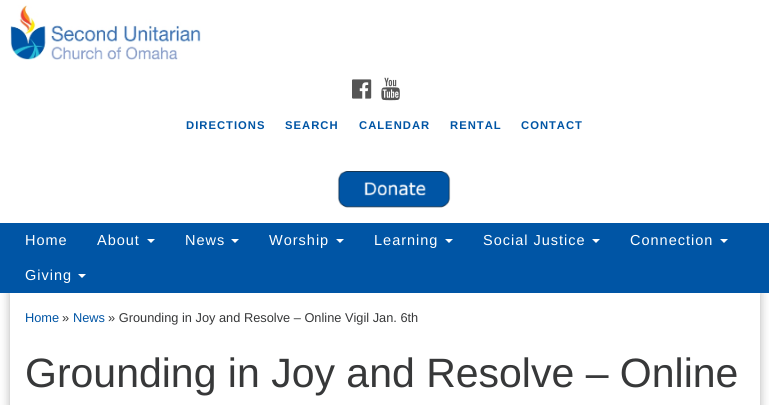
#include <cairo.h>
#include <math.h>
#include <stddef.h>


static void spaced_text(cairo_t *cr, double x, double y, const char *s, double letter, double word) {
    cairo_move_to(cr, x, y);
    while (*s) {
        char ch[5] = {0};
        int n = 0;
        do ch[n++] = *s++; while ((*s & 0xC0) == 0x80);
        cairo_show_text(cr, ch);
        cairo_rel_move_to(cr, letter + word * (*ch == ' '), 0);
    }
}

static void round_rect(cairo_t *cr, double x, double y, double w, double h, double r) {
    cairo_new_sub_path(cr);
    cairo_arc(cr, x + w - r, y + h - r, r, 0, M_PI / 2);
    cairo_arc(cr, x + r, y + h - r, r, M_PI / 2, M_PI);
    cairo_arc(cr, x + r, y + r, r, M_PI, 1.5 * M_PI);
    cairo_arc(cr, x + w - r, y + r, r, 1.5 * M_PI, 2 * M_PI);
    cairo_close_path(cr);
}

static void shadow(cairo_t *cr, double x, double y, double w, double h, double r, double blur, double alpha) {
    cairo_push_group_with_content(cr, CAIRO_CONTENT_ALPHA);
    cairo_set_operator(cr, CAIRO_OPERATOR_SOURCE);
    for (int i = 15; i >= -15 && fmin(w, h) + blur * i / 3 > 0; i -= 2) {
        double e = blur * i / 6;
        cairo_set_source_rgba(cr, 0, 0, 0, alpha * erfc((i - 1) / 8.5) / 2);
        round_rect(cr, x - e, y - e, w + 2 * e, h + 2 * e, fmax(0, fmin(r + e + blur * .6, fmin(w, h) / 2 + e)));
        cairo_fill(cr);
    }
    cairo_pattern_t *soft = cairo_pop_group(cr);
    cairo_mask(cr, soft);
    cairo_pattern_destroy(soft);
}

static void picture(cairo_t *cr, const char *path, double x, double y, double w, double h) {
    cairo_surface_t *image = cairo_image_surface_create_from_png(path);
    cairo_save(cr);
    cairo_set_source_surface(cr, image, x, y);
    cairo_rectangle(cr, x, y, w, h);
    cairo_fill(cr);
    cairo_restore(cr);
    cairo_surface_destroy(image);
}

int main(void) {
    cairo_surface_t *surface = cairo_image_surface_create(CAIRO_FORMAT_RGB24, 769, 405);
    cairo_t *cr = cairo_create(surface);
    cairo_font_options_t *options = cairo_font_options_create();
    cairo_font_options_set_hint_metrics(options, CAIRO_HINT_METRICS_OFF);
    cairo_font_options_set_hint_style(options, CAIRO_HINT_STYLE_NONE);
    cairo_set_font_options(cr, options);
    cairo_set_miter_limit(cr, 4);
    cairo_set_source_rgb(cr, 1, 1, 1);
    cairo_paint(cr);
    picture(cr, "img1.png", 10, 5, 191, 55);
    picture(cr, "img2.png", 352, 79, 20, 20);
    picture(cr, "img3.png", 381, 77, 19, 24);
    cairo_select_font_face(cr, "Liberation Sans", CAIRO_FONT_SLANT_NORMAL, CAIRO_FONT_WEIGHT_BOLD);
    cairo_set_font_size(cr, 11.25);
    cairo_set_source_rgb(cr, 0, 0.333, 0.647);
    spaced_text(cr, 186, 129, "DIRECTIONS", 1, 0);
    spaced_text(cr, 285, 129, "SEARCH", 1, 0);
    spaced_text(cr, 359, 129, "CALENDAR", 1, 0);
    spaced_text(cr, 450, 129, "RENTAL", 1, 0);
    spaced_text(cr, 521, 129, "CONTACT", 1, 0);
    picture(cr, "img4.png", 337, 171, 114, 37);
    cairo_save(cr);
    cairo_set_fill_rule(cr, CAIRO_FILL_RULE_EVEN_ODD);
    cairo_new_path(cr);
    cairo_move_to(cr, 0, 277);
    cairo_line_to(cr, 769, 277);
    cairo_line_to(cr, 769, 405);
    cairo_line_to(cr, 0, 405);
    cairo_close_path(cr);
    cairo_move_to(cr, 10, 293);
    cairo_line_to(cr, 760, 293);
    cairo_line_to(cr, 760, 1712);
    cairo_line_to(cr, 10, 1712);
    cairo_close_path(cr);
    cairo_clip(cr);
    cairo_set_source_rgb(cr, 0, 0, 0);
    shadow(cr, 10, 293, 750, 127, 0, 5, 0.3);
    cairo_restore(cr);
    cairo_rectangle(cr, 0, 223, 769, 70);
    cairo_fill(cr);
    cairo_select_font_face(cr, "Liberation Sans", CAIRO_FONT_SLANT_NORMAL, CAIRO_FONT_WEIGHT_NORMAL);
    cairo_set_font_size(cr, 14.5);
    cairo_set_source_rgb(cr, 1, 1, 1);
    spaced_text(cr, 25, 245, "Home", 1, 0);
    spaced_text(cr, 97, 245, "About", 1, 0);
    cairo_new_path(cr);
    cairo_move_to(cr, 147, 239);
    cairo_line_to(cr, 155, 239);
    cairo_line_to(cr, 151, 243);
    cairo_close_path(cr);
    cairo_fill(cr);
    spaced_text(cr, 185, 245, "News", 1, 0);
    cairo_new_path(cr);
    cairo_move_to(cr, 231, 239);
    cairo_line_to(cr, 239, 239);
    cairo_line_to(cr, 235, 243);
    cairo_close_path(cr);
    cairo_fill(cr);
    spaced_text(cr, 269, 245, "Worship", 1, 0);
    cairo_new_path(cr);
    cairo_move_to(cr, 336, 239);
    cairo_line_to(cr, 344, 239);
    cairo_line_to(cr, 340, 243);
    cairo_close_path(cr);
    cairo_fill(cr);
    spaced_text(cr, 374, 245, "Learning", 1, 0);
    cairo_new_path(cr);
    cairo_move_to(cr, 445, 239);
    cairo_line_to(cr, 453, 239);
    cairo_line_to(cr, 449, 243);
    cairo_close_path(cr);
    cairo_fill(cr);
    spaced_text(cr, 483, 245, "Social Justice", 1, 0);
    cairo_new_path(cr);
    cairo_move_to(cr, 592, 239);
    cairo_line_to(cr, 600, 239);
    cairo_line_to(cr, 596, 243);
    cairo_close_path(cr);
    cairo_fill(cr);
    spaced_text(cr, 630, 245, "Connection", 1, 0);
    cairo_new_path(cr);
    cairo_move_to(cr, 720, 239);
    cairo_line_to(cr, 728, 239);
    cairo_line_to(cr, 724, 243);
    cairo_close_path(cr);
    cairo_fill(cr);
    spaced_text(cr, 25, 280, "Giving", 1, 0);
    cairo_new_path(cr);
    cairo_move_to(cr, 78, 274);
    cairo_line_to(cr, 86, 274);
    cairo_line_to(cr, 82, 278);
    cairo_close_path(cr);
    cairo_fill(cr);
    cairo_set_font_size(cr, 12.8);
    cairo_set_source_rgb(cr, 0, 0.333, 0.647);
    cairo_move_to(cr, 25, 322);
    cairo_show_text(cr, "Home");
    cairo_set_source_rgb(cr, 0.216, 0.22, 0.224);
    cairo_move_to(cr, 62, 322);
    cairo_show_text(cr, "»");
    cairo_set_source_rgb(cr, 0, 0.333, 0.647);
    cairo_move_to(cr, 73, 322);
    cairo_show_text(cr, "News");
    cairo_set_source_rgb(cr, 0.216, 0.22, 0.224);
    cairo_move_to(cr, 108, 322);
    cairo_show_text(cr, "» Grounding in Joy and Resolve – Online Vigil Jan. 6th");
    cairo_set_font_size(cr, 41);
    cairo_move_to(cr, 25, 387);
    cairo_show_text(cr, "Grounding in Joy and Resolve – Online");
    cairo_surface_write_to_png(surface, "page.png");
    cairo_font_options_destroy(options);
    cairo_destroy(cr);
    cairo_surface_destroy(surface);
    return 0;
}
